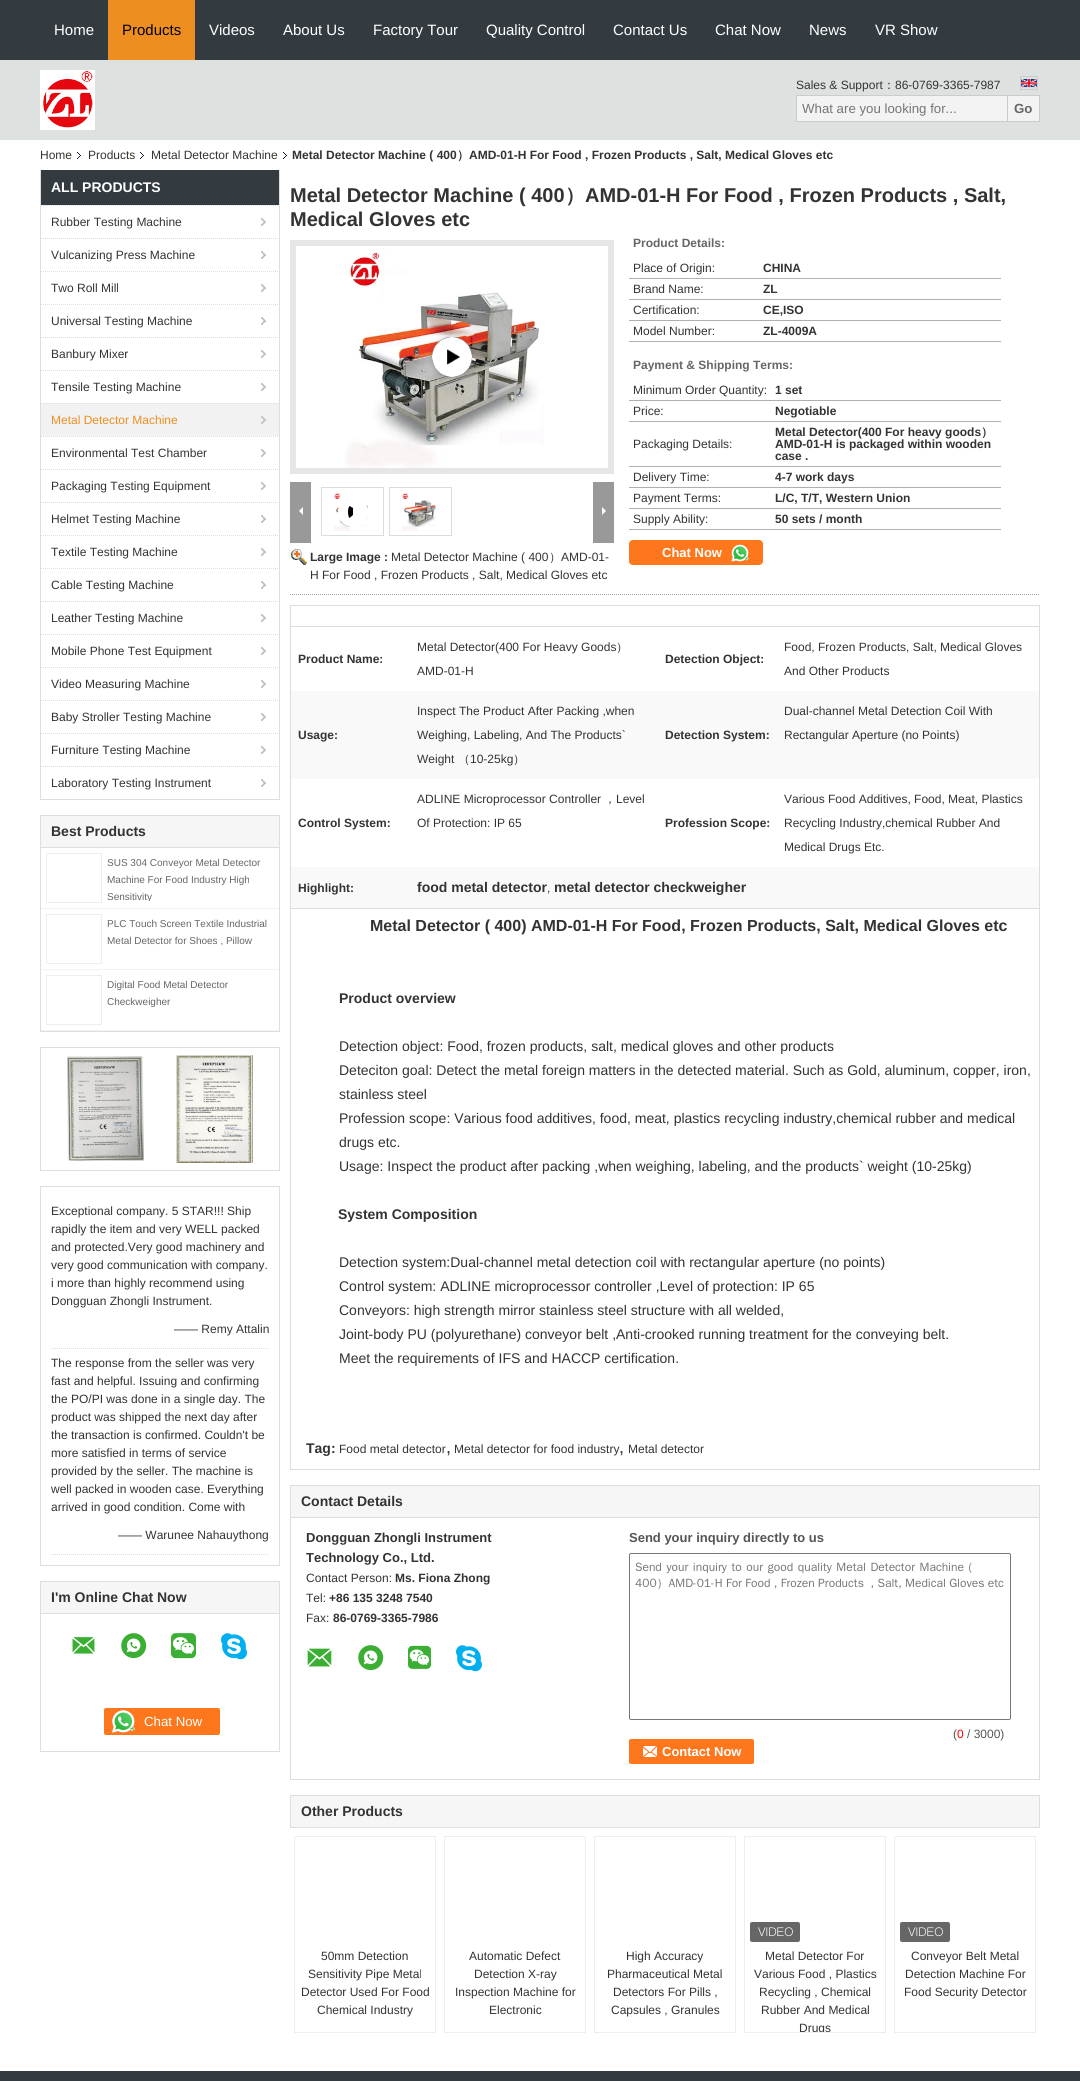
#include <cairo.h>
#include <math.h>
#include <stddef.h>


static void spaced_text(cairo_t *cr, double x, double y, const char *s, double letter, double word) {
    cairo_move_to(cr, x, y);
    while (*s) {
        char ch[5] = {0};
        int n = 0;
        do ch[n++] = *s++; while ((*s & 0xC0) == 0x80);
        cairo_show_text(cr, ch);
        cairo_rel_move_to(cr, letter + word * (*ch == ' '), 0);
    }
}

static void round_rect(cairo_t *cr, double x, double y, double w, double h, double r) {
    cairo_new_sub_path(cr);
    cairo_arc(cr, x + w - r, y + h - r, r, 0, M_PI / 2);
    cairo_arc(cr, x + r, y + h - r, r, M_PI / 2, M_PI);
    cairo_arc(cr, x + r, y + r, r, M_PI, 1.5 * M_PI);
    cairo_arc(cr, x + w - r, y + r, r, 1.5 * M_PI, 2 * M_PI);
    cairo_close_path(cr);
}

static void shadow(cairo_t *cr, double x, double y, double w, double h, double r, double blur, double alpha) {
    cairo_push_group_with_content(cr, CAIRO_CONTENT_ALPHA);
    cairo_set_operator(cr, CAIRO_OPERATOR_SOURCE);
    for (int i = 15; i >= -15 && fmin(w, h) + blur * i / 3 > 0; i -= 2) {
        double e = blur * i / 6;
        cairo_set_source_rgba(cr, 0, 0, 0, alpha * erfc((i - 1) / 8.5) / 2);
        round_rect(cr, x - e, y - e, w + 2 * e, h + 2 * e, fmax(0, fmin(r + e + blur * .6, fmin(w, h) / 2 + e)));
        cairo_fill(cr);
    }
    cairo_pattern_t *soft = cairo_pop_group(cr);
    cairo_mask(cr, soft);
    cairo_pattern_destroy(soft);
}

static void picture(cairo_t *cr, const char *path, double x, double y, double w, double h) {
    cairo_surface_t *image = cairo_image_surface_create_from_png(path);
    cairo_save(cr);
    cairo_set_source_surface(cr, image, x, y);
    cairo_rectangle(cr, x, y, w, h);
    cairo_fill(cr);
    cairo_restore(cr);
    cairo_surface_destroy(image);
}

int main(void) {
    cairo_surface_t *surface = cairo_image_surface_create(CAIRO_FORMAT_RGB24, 1080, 2081);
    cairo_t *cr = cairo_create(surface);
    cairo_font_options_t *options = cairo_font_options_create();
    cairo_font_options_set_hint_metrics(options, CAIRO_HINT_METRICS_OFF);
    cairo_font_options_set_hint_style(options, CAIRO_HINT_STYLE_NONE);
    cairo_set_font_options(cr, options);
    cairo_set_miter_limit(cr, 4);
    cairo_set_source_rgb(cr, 1, 1, 1);
    cairo_paint(cr);
    cairo_set_source_rgb(cr, 0.2, 0.231, 0.255);
    cairo_rectangle(cr, 0, 0, 1080, 60);
    cairo_fill(cr);
    cairo_select_font_face(cr, "Liberation Sans", CAIRO_FONT_SLANT_NORMAL, CAIRO_FONT_WEIGHT_NORMAL);
    cairo_set_font_size(cr, 15);
    cairo_set_source_rgb(cr, 1, 1, 1);
    cairo_move_to(cr, 54, 35);
    cairo_show_text(cr, "Home");
    cairo_set_source_rgb(cr, 0.933, 0.557, 0.129);
    cairo_rectangle(cr, 108, 0, 87, 60);
    cairo_fill(cr);
    cairo_set_source_rgb(cr, 0, 0, 0);
    cairo_move_to(cr, 122, 35);
    cairo_show_text(cr, "Products");
    cairo_set_source_rgb(cr, 1, 1, 1);
    cairo_move_to(cr, 209, 35);
    cairo_show_text(cr, "Videos");
    cairo_move_to(cr, 283, 35);
    cairo_show_text(cr, "About Us");
    cairo_move_to(cr, 373, 35);
    cairo_show_text(cr, "Factory Tour");
    cairo_move_to(cr, 486, 35);
    cairo_show_text(cr, "Quality Control");
    cairo_move_to(cr, 613, 35);
    cairo_show_text(cr, "Contact Us");
    cairo_move_to(cr, 715, 35);
    cairo_show_text(cr, "Chat Now");
    cairo_move_to(cr, 809, 35);
    cairo_show_text(cr, "News");
    cairo_move_to(cr, 875, 35);
    cairo_show_text(cr, "VR Show");
    cairo_set_source_rgb(cr, 0.867, 0.882, 0.875);
    cairo_rectangle(cr, 0, 60, 1080, 80);
    cairo_fill(cr);
    picture(cr, "img1.png", 40, 70, 55, 60);
    cairo_set_font_size(cr, 12);
    cairo_set_source_rgb(cr, 0.2, 0.2, 0.2);
    cairo_move_to(cr, 796, 89);
    cairo_show_text(cr, "Sales & Support");
    cairo_select_font_face(cr, "WenQuanYi Zen Hei Medium", CAIRO_FONT_SLANT_NORMAL, CAIRO_FONT_WEIGHT_NORMAL);
    cairo_move_to(cr, 883, 89);
    cairo_show_text(cr, "：");
    cairo_select_font_face(cr, "Liberation Sans", CAIRO_FONT_SLANT_NORMAL, CAIRO_FONT_WEIGHT_NORMAL);
    cairo_move_to(cr, 895, 89);
    cairo_show_text(cr, "86-0769-3365-7987");
    cairo_rectangle(cr, 1020.5, 76.5, 17, 13);
    cairo_set_source_rgb(cr, 0.8, 0.8, 0.8);
    cairo_set_line_width(cr, 1);
    cairo_stroke(cr);
    picture(cr, "img2.png", 1021, 79, 16, 9);
    cairo_set_source_rgb(cr, 0.953, 0.953, 0.953);
    cairo_rectangle(cr, 797, 96, 210, 25);
    cairo_fill(cr);
    cairo_set_source_rgb(cr, 0.8, 0.8, 0.8);
    cairo_rectangle(cr, 796, 95, 211, 1);
    cairo_fill(cr);
    cairo_rectangle(cr, 796, 121, 211, 1);
    cairo_fill(cr);
    cairo_rectangle(cr, 796, 95, 1, 27);
    cairo_fill(cr);
    cairo_set_font_size(cr, 13.25);
    cairo_set_source_rgb(cr, 0.459, 0.459, 0.459);
    cairo_move_to(cr, 802, 113);
    cairo_show_text(cr, "What are you looking for...");
    cairo_set_source_rgb(cr, 0.953, 0.953, 0.953);
    cairo_rectangle(cr, 1007.5, 95.5, 32, 26);
    cairo_fill_preserve(cr);
    cairo_set_source_rgb(cr, 0.8, 0.8, 0.8);
    cairo_stroke(cr);
    cairo_select_font_face(cr, "Liberation Sans", CAIRO_FONT_SLANT_NORMAL, CAIRO_FONT_WEIGHT_BOLD);
    cairo_set_source_rgb(cr, 0.4, 0.4, 0.4);
    cairo_move_to(cr, 1014, 113);
    cairo_show_text(cr, "Go");
    cairo_select_font_face(cr, "Liberation Sans", CAIRO_FONT_SLANT_NORMAL, CAIRO_FONT_WEIGHT_NORMAL);
    cairo_set_font_size(cr, 12);
    cairo_set_source_rgb(cr, 0.2, 0.2, 0.2);
    cairo_move_to(cr, 40, 159);
    cairo_show_text(cr, "Home");
    picture(cr, "img3.png", 77, 152, 4, 7);
    cairo_move_to(cr, 88, 159);
    cairo_show_text(cr, "Products");
    picture(cr, "img3.png", 140, 152, 4, 7);
    cairo_move_to(cr, 151, 159);
    cairo_show_text(cr, "Metal Detector Machine");
    picture(cr, "img3.png", 283, 152, 4, 7);
    cairo_select_font_face(cr, "Liberation Sans", CAIRO_FONT_SLANT_NORMAL, CAIRO_FONT_WEIGHT_BOLD);
    cairo_move_to(cr, 292, 159);
    cairo_show_text(cr, "Metal Detector Machine ( 400");
    cairo_select_font_face(cr, "WenQuanYi Zen Hei", CAIRO_FONT_SLANT_NORMAL, CAIRO_FONT_WEIGHT_BOLD);
    cairo_move_to(cr, 457, 159);
    cairo_show_text(cr, "）");
    cairo_select_font_face(cr, "Liberation Sans", CAIRO_FONT_SLANT_NORMAL, CAIRO_FONT_WEIGHT_BOLD);
    cairo_move_to(cr, 469, 159);
    cairo_show_text(cr, "AMD-01-H For Food , Frozen Products , Salt, Medical Gloves etc");
    cairo_set_source_rgb(cr, 0.871, 0.871, 0.871);
    cairo_rectangle(cr, 279, 170, 1, 630);
    cairo_fill(cr);
    cairo_rectangle(cr, 40, 799, 240, 1);
    cairo_fill(cr);
    cairo_rectangle(cr, 40, 170, 1, 630);
    cairo_fill(cr);
    cairo_set_source_rgb(cr, 0.2, 0.231, 0.255);
    cairo_rectangle(cr, 41, 170, 238, 35);
    cairo_fill(cr);
    cairo_set_font_size(cr, 14);
    cairo_set_source_rgb(cr, 1, 1, 1);
    cairo_move_to(cr, 51, 192);
    cairo_show_text(cr, "ALL PRODUCTS");
    cairo_new_path(cr);
    cairo_move_to(cr, 41, 205.5);
    cairo_line_to(cr, 279, 205.5);
    cairo_set_source_rgb(cr, 0.871, 0.871, 0.871);
    cairo_set_dash(cr, (double[]){1, 1}, 2, 0);
    cairo_stroke(cr);
    cairo_select_font_face(cr, "Liberation Sans", CAIRO_FONT_SLANT_NORMAL, CAIRO_FONT_WEIGHT_NORMAL);
    cairo_set_font_size(cr, 12);
    cairo_set_source_rgb(cr, 0.2, 0.2, 0.2);
    cairo_move_to(cr, 51, 226);
    cairo_show_text(cr, "Rubber Testing Machine");
    picture(cr, "img4.png", 261, 218, 5, 8);
    cairo_new_path(cr);
    cairo_move_to(cr, 41, 238.5);
    cairo_line_to(cr, 279, 238.5);
    cairo_set_source_rgb(cr, 0.871, 0.871, 0.871);
    cairo_stroke(cr);
    cairo_set_source_rgb(cr, 0.2, 0.2, 0.2);
    cairo_move_to(cr, 51, 259);
    cairo_show_text(cr, "Vulcanizing Press Machine");
    picture(cr, "img4.png", 261, 251, 5, 8);
    cairo_new_path(cr);
    cairo_move_to(cr, 41, 271.5);
    cairo_line_to(cr, 279, 271.5);
    cairo_set_source_rgb(cr, 0.871, 0.871, 0.871);
    cairo_stroke(cr);
    cairo_set_source_rgb(cr, 0.2, 0.2, 0.2);
    cairo_move_to(cr, 51, 292);
    cairo_show_text(cr, "Two Roll Mill");
    picture(cr, "img4.png", 261, 284, 5, 8);
    cairo_new_path(cr);
    cairo_move_to(cr, 41, 304.5);
    cairo_line_to(cr, 279, 304.5);
    cairo_set_source_rgb(cr, 0.871, 0.871, 0.871);
    cairo_stroke(cr);
    cairo_set_source_rgb(cr, 0.2, 0.2, 0.2);
    cairo_move_to(cr, 51, 325);
    cairo_show_text(cr, "Universal Testing Machine");
    picture(cr, "img4.png", 261, 317, 5, 8);
    cairo_new_path(cr);
    cairo_move_to(cr, 41, 337.5);
    cairo_line_to(cr, 279, 337.5);
    cairo_set_source_rgb(cr, 0.871, 0.871, 0.871);
    cairo_stroke(cr);
    cairo_set_source_rgb(cr, 0.2, 0.2, 0.2);
    cairo_move_to(cr, 51, 358);
    cairo_show_text(cr, "Banbury Mixer");
    picture(cr, "img4.png", 261, 350, 5, 8);
    cairo_new_path(cr);
    cairo_move_to(cr, 41, 370.5);
    cairo_line_to(cr, 279, 370.5);
    cairo_set_source_rgb(cr, 0.871, 0.871, 0.871);
    cairo_stroke(cr);
    cairo_set_source_rgb(cr, 0.2, 0.2, 0.2);
    cairo_move_to(cr, 51, 391);
    cairo_show_text(cr, "Tensile Testing Machine");
    picture(cr, "img4.png", 261, 383, 5, 8);
    cairo_set_source_rgb(cr, 0.949, 0.949, 0.949);
    cairo_rectangle(cr, 41, 403, 238, 33);
    cairo_fill(cr);
    cairo_new_path(cr);
    cairo_move_to(cr, 41, 403.5);
    cairo_line_to(cr, 279, 403.5);
    cairo_set_source_rgb(cr, 0.871, 0.871, 0.871);
    cairo_stroke(cr);
    cairo_set_source_rgb(cr, 0.933, 0.557, 0.129);
    cairo_move_to(cr, 51, 424);
    cairo_show_text(cr, "Metal Detector Machine");
    picture(cr, "img5.png", 261, 416, 5, 8);
    cairo_new_path(cr);
    cairo_move_to(cr, 41, 436.5);
    cairo_line_to(cr, 279, 436.5);
    cairo_set_source_rgb(cr, 0.871, 0.871, 0.871);
    cairo_stroke(cr);
    cairo_set_source_rgb(cr, 0.2, 0.2, 0.2);
    cairo_move_to(cr, 51, 457);
    cairo_show_text(cr, "Environmental Test Chamber");
    picture(cr, "img4.png", 261, 449, 5, 8);
    cairo_new_path(cr);
    cairo_move_to(cr, 41, 469.5);
    cairo_line_to(cr, 279, 469.5);
    cairo_set_source_rgb(cr, 0.871, 0.871, 0.871);
    cairo_stroke(cr);
    cairo_set_source_rgb(cr, 0.2, 0.2, 0.2);
    cairo_move_to(cr, 51, 490);
    cairo_show_text(cr, "Packaging Testing Equipment");
    picture(cr, "img4.png", 261, 482, 5, 8);
    cairo_new_path(cr);
    cairo_move_to(cr, 41, 502.5);
    cairo_line_to(cr, 279, 502.5);
    cairo_set_source_rgb(cr, 0.871, 0.871, 0.871);
    cairo_stroke(cr);
    cairo_set_source_rgb(cr, 0.2, 0.2, 0.2);
    cairo_move_to(cr, 51, 523);
    cairo_show_text(cr, "Helmet Testing Machine");
    picture(cr, "img4.png", 261, 515, 5, 8);
    cairo_new_path(cr);
    cairo_move_to(cr, 41, 535.5);
    cairo_line_to(cr, 279, 535.5);
    cairo_set_source_rgb(cr, 0.871, 0.871, 0.871);
    cairo_stroke(cr);
    cairo_set_source_rgb(cr, 0.2, 0.2, 0.2);
    cairo_move_to(cr, 51, 556);
    cairo_show_text(cr, "Textile Testing Machine");
    picture(cr, "img4.png", 261, 548, 5, 8);
    cairo_new_path(cr);
    cairo_move_to(cr, 41, 568.5);
    cairo_line_to(cr, 279, 568.5);
    cairo_set_source_rgb(cr, 0.871, 0.871, 0.871);
    cairo_stroke(cr);
    cairo_set_source_rgb(cr, 0.2, 0.2, 0.2);
    cairo_move_to(cr, 51, 589);
    cairo_show_text(cr, "Cable Testing Machine");
    picture(cr, "img4.png", 261, 581, 5, 8);
    cairo_new_path(cr);
    cairo_move_to(cr, 41, 601.5);
    cairo_line_to(cr, 279, 601.5);
    cairo_set_source_rgb(cr, 0.871, 0.871, 0.871);
    cairo_stroke(cr);
    cairo_set_source_rgb(cr, 0.2, 0.2, 0.2);
    cairo_move_to(cr, 51, 622);
    cairo_show_text(cr, "Leather Testing Machine");
    picture(cr, "img4.png", 261, 614, 5, 8);
    cairo_new_path(cr);
    cairo_move_to(cr, 41, 634.5);
    cairo_line_to(cr, 279, 634.5);
    cairo_set_source_rgb(cr, 0.871, 0.871, 0.871);
    cairo_stroke(cr);
    cairo_set_source_rgb(cr, 0.2, 0.2, 0.2);
    cairo_move_to(cr, 51, 655);
    cairo_show_text(cr, "Mobile Phone Test Equipment");
    picture(cr, "img4.png", 261, 647, 5, 8);
    cairo_new_path(cr);
    cairo_move_to(cr, 41, 667.5);
    cairo_line_to(cr, 279, 667.5);
    cairo_set_source_rgb(cr, 0.871, 0.871, 0.871);
    cairo_stroke(cr);
    cairo_set_source_rgb(cr, 0.2, 0.2, 0.2);
    cairo_move_to(cr, 51, 688);
    cairo_show_text(cr, "Video Measuring Machine");
    picture(cr, "img4.png", 261, 680, 5, 8);
    cairo_new_path(cr);
    cairo_move_to(cr, 41, 700.5);
    cairo_line_to(cr, 279, 700.5);
    cairo_set_source_rgb(cr, 0.871, 0.871, 0.871);
    cairo_stroke(cr);
    cairo_set_source_rgb(cr, 0.2, 0.2, 0.2);
    cairo_move_to(cr, 51, 721);
    cairo_show_text(cr, "Baby Stroller Testing Machine");
    picture(cr, "img4.png", 261, 713, 5, 8);
    cairo_new_path(cr);
    cairo_move_to(cr, 41, 733.5);
    cairo_line_to(cr, 279, 733.5);
    cairo_set_source_rgb(cr, 0.871, 0.871, 0.871);
    cairo_stroke(cr);
    cairo_set_source_rgb(cr, 0.2, 0.2, 0.2);
    cairo_move_to(cr, 51, 754);
    cairo_show_text(cr, "Furniture Testing Machine");
    picture(cr, "img4.png", 261, 746, 5, 8);
    cairo_new_path(cr);
    cairo_move_to(cr, 41, 766.5);
    cairo_line_to(cr, 279, 766.5);
    cairo_set_source_rgb(cr, 0.871, 0.871, 0.871);
    cairo_stroke(cr);
    cairo_set_source_rgb(cr, 0.2, 0.2, 0.2);
    cairo_move_to(cr, 51, 787);
    cairo_show_text(cr, "Laboratory Testing Instrument");
    picture(cr, "img4.png", 261, 779, 5, 8);
    cairo_rectangle(cr, 40.5, 815.5, 239, 216);
    cairo_set_source_rgb(cr, 0.871, 0.871, 0.871);
    cairo_set_dash(cr, NULL, 0, 0);
    cairo_stroke(cr);
    cairo_set_source_rgb(cr, 0.961, 0.961, 0.961);
    cairo_rectangle(cr, 41, 816, 238, 31);
    cairo_fill(cr);
    cairo_set_source_rgb(cr, 0.871, 0.871, 0.871);
    cairo_rectangle(cr, 41, 847, 238, 1);
    cairo_fill(cr);
    cairo_select_font_face(cr, "Liberation Sans", CAIRO_FONT_SLANT_NORMAL, CAIRO_FONT_WEIGHT_BOLD);
    cairo_set_font_size(cr, 14);
    cairo_set_source_rgb(cr, 0.2, 0.2, 0.2);
    cairo_move_to(cr, 51, 836);
    cairo_show_text(cr, "Best Products");
    cairo_set_source_rgb(cr, 0.941, 0.957, 0.965);
    cairo_rectangle(cr, 41, 908, 238, 1);
    cairo_fill(cr);
    cairo_rectangle(cr, 46.5, 853.5, 55, 49);
    cairo_set_source_rgb(cr, 0.933, 0.933, 0.933);
    cairo_stroke(cr);
    cairo_select_font_face(cr, "Liberation Sans", CAIRO_FONT_SLANT_NORMAL, CAIRO_FONT_WEIGHT_NORMAL);
    cairo_set_font_size(cr, 10);
    cairo_set_source_rgb(cr, 0.4, 0.4, 0.4);
    cairo_move_to(cr, 107, 866);
    cairo_show_text(cr, "SUS 304 Conveyor Metal Detector");
    cairo_move_to(cr, 107, 883);
    cairo_show_text(cr, "Machine For Food Industry High");
    cairo_save(cr);
    cairo_rectangle(cr, 107, 853, 167, 48);
    cairo_clip(cr);
    cairo_move_to(cr, 107, 900);
    cairo_show_text(cr, "Sensitivity");
    cairo_restore(cr);
    cairo_set_source_rgb(cr, 0.941, 0.957, 0.965);
    cairo_rectangle(cr, 41, 969, 238, 1);
    cairo_fill(cr);
    cairo_rectangle(cr, 46.5, 914.5, 55, 49);
    cairo_set_source_rgb(cr, 0.933, 0.933, 0.933);
    cairo_stroke(cr);
    cairo_set_source_rgb(cr, 0.4, 0.4, 0.4);
    cairo_move_to(cr, 107, 927);
    cairo_show_text(cr, "PLC Touch Screen Textile Industrial");
    cairo_move_to(cr, 107, 944);
    cairo_show_text(cr, "Metal Detector for Shoes , Pillow");
    cairo_set_source_rgb(cr, 0.941, 0.957, 0.965);
    cairo_rectangle(cr, 41, 1030, 238, 1);
    cairo_fill(cr);
    cairo_rectangle(cr, 46.5, 975.5, 55, 49);
    cairo_set_source_rgb(cr, 0.933, 0.933, 0.933);
    cairo_stroke(cr);
    cairo_set_source_rgb(cr, 0.4, 0.4, 0.4);
    cairo_move_to(cr, 107, 988);
    cairo_show_text(cr, "Digital Food Metal Detector");
    cairo_move_to(cr, 107, 1005);
    cairo_show_text(cr, "Checkweigher");
    cairo_rectangle(cr, 40.5, 1047.5, 239, 123);
    cairo_set_source_rgb(cr, 0.871, 0.871, 0.871);
    cairo_stroke(cr);
    picture(cr, "img6.png", 67, 1056, 77, 105);
    picture(cr, "img7.png", 176, 1055, 77, 108);
    cairo_rectangle(cr, 40.5, 1186.5, 239, 379);
    cairo_stroke(cr);
    cairo_new_path(cr);
    cairo_move_to(cr, 51, 1348.5);
    cairo_line_to(cr, 269, 1348.5);
    cairo_set_dash(cr, (double[]){1, 1}, 2, 0);
    cairo_stroke(cr);
    cairo_set_font_size(cr, 12);
    cairo_set_source_rgb(cr, 0.2, 0.2, 0.2);
    cairo_move_to(cr, 51, 1215);
    cairo_show_text(cr, "Exceptional company. 5 STAR!!! Ship");
    cairo_move_to(cr, 51, 1233);
    cairo_show_text(cr, "rapidly the item and very WELL packed");
    cairo_move_to(cr, 51, 1251);
    cairo_show_text(cr, "and protected.Very good machinery and");
    cairo_move_to(cr, 51, 1269);
    cairo_show_text(cr, "very good communication with company.");
    cairo_move_to(cr, 51, 1287);
    cairo_show_text(cr, "i more than highly recommend using");
    cairo_move_to(cr, 51, 1305);
    cairo_show_text(cr, "Dongguan Zhongli Instrument.");
    cairo_move_to(cr, 174, 1333);
    cairo_show_text(cr, "—— Remy Attalin");
    cairo_new_path(cr);
    cairo_move_to(cr, 51, 1554.5);
    cairo_line_to(cr, 269, 1554.5);
    cairo_set_source_rgb(cr, 0.871, 0.871, 0.871);
    cairo_stroke(cr);
    cairo_set_source_rgb(cr, 0.2, 0.2, 0.2);
    cairo_move_to(cr, 51, 1367);
    cairo_show_text(cr, "The response from the seller was very");
    cairo_move_to(cr, 51, 1385);
    cairo_show_text(cr, "fast and helpful. Issuing and confirming");
    cairo_move_to(cr, 51, 1403);
    cairo_show_text(cr, "the PO/PI was done in a single day. The");
    cairo_move_to(cr, 51, 1421);
    cairo_show_text(cr, "product was shipped the next day after");
    cairo_move_to(cr, 51, 1439);
    cairo_show_text(cr, "the transaction is confirmed. Couldn't be");
    cairo_move_to(cr, 51, 1457);
    cairo_show_text(cr, "more satisfied in terms of service");
    cairo_move_to(cr, 51, 1475);
    cairo_show_text(cr, "provided by the seller. The machine is");
    cairo_move_to(cr, 51, 1493);
    cairo_show_text(cr, "well packed in wooden case. Everything");
    cairo_move_to(cr, 51, 1511);
    cairo_show_text(cr, "arrived in good condition. Come with");
    cairo_move_to(cr, 118, 1539);
    cairo_show_text(cr, "—— Warunee Nahauythong");
    cairo_rectangle(cr, 40.5, 1581.5, 239, 170);
    cairo_set_source_rgb(cr, 0.871, 0.871, 0.871);
    cairo_set_dash(cr, NULL, 0, 0);
    cairo_stroke(cr);
    cairo_set_source_rgb(cr, 0.961, 0.961, 0.961);
    cairo_rectangle(cr, 41, 1582, 238, 31);
    cairo_fill(cr);
    cairo_set_source_rgb(cr, 0.871, 0.871, 0.871);
    cairo_rectangle(cr, 41, 1613, 238, 1);
    cairo_fill(cr);
    cairo_select_font_face(cr, "Liberation Sans", CAIRO_FONT_SLANT_NORMAL, CAIRO_FONT_WEIGHT_BOLD);
    cairo_set_font_size(cr, 14);
    cairo_set_source_rgb(cr, 0.2, 0.2, 0.2);
    cairo_move_to(cr, 51, 1602);
    cairo_show_text(cr, "I'm Online Chat Now");
    picture(cr, "img8.png", 72, 1637, 23, 17);
    picture(cr, "img9.png", 121, 1633, 26, 26);
    picture(cr, "img10.png", 171, 1633, 25, 26);
    picture(cr, "img11.png", 221, 1633, 26, 27);
    cairo_set_source_rgb(cr, 1, 0.467, 0.11);
    round_rect(cr, 104, 1708, 116, 27, 2);
    cairo_fill(cr);
    picture(cr, "img12.png", 112, 1710, 23, 23);
    cairo_select_font_face(cr, "Liberation Sans", CAIRO_FONT_SLANT_NORMAL, CAIRO_FONT_WEIGHT_NORMAL);
    cairo_set_font_size(cr, 13.25);
    cairo_set_source_rgb(cr, 1, 1, 1);
    cairo_move_to(cr, 144, 1726);
    cairo_show_text(cr, "Chat Now");
    cairo_select_font_face(cr, "Liberation Sans", CAIRO_FONT_SLANT_NORMAL, CAIRO_FONT_WEIGHT_BOLD);
    cairo_set_font_size(cr, 20);
    cairo_set_source_rgb(cr, 0.2, 0.2, 0.2);
    cairo_move_to(cr, 290, 202);
    cairo_show_text(cr, "Metal Detector Machine ( 400");
    cairo_select_font_face(cr, "WenQuanYi Zen Hei", CAIRO_FONT_SLANT_NORMAL, CAIRO_FONT_WEIGHT_BOLD);
    cairo_move_to(cr, 565, 202);
    cairo_show_text(cr, "）");
    cairo_select_font_face(cr, "Liberation Sans", CAIRO_FONT_SLANT_NORMAL, CAIRO_FONT_WEIGHT_BOLD);
    cairo_move_to(cr, 585, 202);
    cairo_show_text(cr, "AMD-01-H For Food , Frozen Products , Salt,");
    cairo_move_to(cr, 290, 226);
    cairo_show_text(cr, "Medical Gloves etc");
    cairo_new_path(cr);
    cairo_move_to(cr, 290, 594.5);
    cairo_line_to(cr, 1040, 594.5);
    cairo_set_source_rgb(cr, 0.635, 0.635, 0.635);
    cairo_set_dash(cr, (double[]){1, 1}, 2, 0);
    cairo_stroke(cr);
    cairo_set_font_size(cr, 12);
    cairo_set_source_rgb(cr, 0.4, 0.4, 0.4);
    cairo_move_to(cr, 633, 247);
    cairo_show_text(cr, "Product Details:");
    cairo_select_font_face(cr, "Liberation Sans", CAIRO_FONT_SLANT_NORMAL, CAIRO_FONT_WEIGHT_NORMAL);
    cairo_set_source_rgb(cr, 0.2, 0.2, 0.2);
    cairo_move_to(cr, 633, 272);
    cairo_show_text(cr, "Place of Origin:");
    cairo_set_source_rgb(cr, 0.686, 0.686, 0.686);
    cairo_rectangle(cr, 629, 278, 372, 1);
    cairo_fill(cr);
    cairo_select_font_face(cr, "Liberation Sans", CAIRO_FONT_SLANT_NORMAL, CAIRO_FONT_WEIGHT_BOLD);
    cairo_set_source_rgb(cr, 0.2, 0.2, 0.2);
    cairo_move_to(cr, 763, 272);
    cairo_show_text(cr, "CHINA");
    cairo_select_font_face(cr, "Liberation Sans", CAIRO_FONT_SLANT_NORMAL, CAIRO_FONT_WEIGHT_NORMAL);
    cairo_move_to(cr, 633, 293);
    cairo_show_text(cr, "Brand Name:");
    cairo_set_source_rgb(cr, 0.686, 0.686, 0.686);
    cairo_rectangle(cr, 629, 299, 372, 1);
    cairo_fill(cr);
    cairo_select_font_face(cr, "Liberation Sans", CAIRO_FONT_SLANT_NORMAL, CAIRO_FONT_WEIGHT_BOLD);
    cairo_set_source_rgb(cr, 0.2, 0.2, 0.2);
    cairo_move_to(cr, 763, 293);
    cairo_show_text(cr, "ZL");
    cairo_select_font_face(cr, "Liberation Sans", CAIRO_FONT_SLANT_NORMAL, CAIRO_FONT_WEIGHT_NORMAL);
    cairo_move_to(cr, 633, 314);
    cairo_show_text(cr, "Certification:");
    cairo_set_source_rgb(cr, 0.686, 0.686, 0.686);
    cairo_rectangle(cr, 629, 320, 372, 1);
    cairo_fill(cr);
    cairo_select_font_face(cr, "Liberation Sans", CAIRO_FONT_SLANT_NORMAL, CAIRO_FONT_WEIGHT_BOLD);
    cairo_set_source_rgb(cr, 0.2, 0.2, 0.2);
    cairo_move_to(cr, 763, 314);
    cairo_show_text(cr, "CE,ISO");
    cairo_select_font_face(cr, "Liberation Sans", CAIRO_FONT_SLANT_NORMAL, CAIRO_FONT_WEIGHT_NORMAL);
    cairo_move_to(cr, 633, 335);
    cairo_show_text(cr, "Model Number:");
    cairo_set_source_rgb(cr, 0.686, 0.686, 0.686);
    cairo_rectangle(cr, 629, 341, 372, 1);
    cairo_fill(cr);
    cairo_select_font_face(cr, "Liberation Sans", CAIRO_FONT_SLANT_NORMAL, CAIRO_FONT_WEIGHT_BOLD);
    cairo_set_source_rgb(cr, 0.2, 0.2, 0.2);
    cairo_move_to(cr, 763, 335);
    cairo_show_text(cr, "ZL-4009A");
    cairo_set_source_rgb(cr, 0.4, 0.4, 0.4);
    cairo_move_to(cr, 633, 369);
    cairo_show_text(cr, "Payment & Shipping Terms:");
    cairo_select_font_face(cr, "Liberation Sans", CAIRO_FONT_SLANT_NORMAL, CAIRO_FONT_WEIGHT_NORMAL);
    cairo_set_source_rgb(cr, 0.2, 0.2, 0.2);
    cairo_move_to(cr, 633, 394);
    cairo_show_text(cr, "Minimum Order Quantity:");
    cairo_set_source_rgb(cr, 0.686, 0.686, 0.686);
    cairo_rectangle(cr, 629, 400, 372, 1);
    cairo_fill(cr);
    cairo_select_font_face(cr, "Liberation Sans", CAIRO_FONT_SLANT_NORMAL, CAIRO_FONT_WEIGHT_BOLD);
    cairo_set_source_rgb(cr, 0.2, 0.2, 0.2);
    cairo_move_to(cr, 775, 394);
    cairo_show_text(cr, "1 set");
    cairo_select_font_face(cr, "Liberation Sans", CAIRO_FONT_SLANT_NORMAL, CAIRO_FONT_WEIGHT_NORMAL);
    cairo_move_to(cr, 633, 415);
    cairo_show_text(cr, "Price:");
    cairo_set_source_rgb(cr, 0.686, 0.686, 0.686);
    cairo_rectangle(cr, 629, 421, 372, 1);
    cairo_fill(cr);
    cairo_select_font_face(cr, "Liberation Sans", CAIRO_FONT_SLANT_NORMAL, CAIRO_FONT_WEIGHT_BOLD);
    cairo_set_source_rgb(cr, 0.2, 0.2, 0.2);
    cairo_move_to(cr, 775, 415);
    cairo_show_text(cr, "Negotiable");
    cairo_select_font_face(cr, "Liberation Sans", CAIRO_FONT_SLANT_NORMAL, CAIRO_FONT_WEIGHT_NORMAL);
    cairo_move_to(cr, 633, 448);
    cairo_show_text(cr, "Packaging Details:");
    cairo_set_source_rgb(cr, 0.686, 0.686, 0.686);
    cairo_rectangle(cr, 629, 466, 372, 1);
    cairo_fill(cr);
    cairo_select_font_face(cr, "Liberation Sans", CAIRO_FONT_SLANT_NORMAL, CAIRO_FONT_WEIGHT_BOLD);
    cairo_set_source_rgb(cr, 0.2, 0.2, 0.2);
    cairo_move_to(cr, 775, 436);
    cairo_show_text(cr, "Metal Detector(400 For heavy goods");
    cairo_select_font_face(cr, "WenQuanYi Zen Hei", CAIRO_FONT_SLANT_NORMAL, CAIRO_FONT_WEIGHT_BOLD);
    cairo_move_to(cr, 981, 436);
    cairo_show_text(cr, "）");
    cairo_select_font_face(cr, "Liberation Sans", CAIRO_FONT_SLANT_NORMAL, CAIRO_FONT_WEIGHT_BOLD);
    cairo_move_to(cr, 775, 448);
    cairo_show_text(cr, "AMD-01-H is packaged within wooden");
    cairo_move_to(cr, 775, 460);
    cairo_show_text(cr, "case .");
    cairo_select_font_face(cr, "Liberation Sans", CAIRO_FONT_SLANT_NORMAL, CAIRO_FONT_WEIGHT_NORMAL);
    cairo_move_to(cr, 633, 481);
    cairo_show_text(cr, "Delivery Time:");
    cairo_set_source_rgb(cr, 0.686, 0.686, 0.686);
    cairo_rectangle(cr, 629, 487, 372, 1);
    cairo_fill(cr);
    cairo_select_font_face(cr, "Liberation Sans", CAIRO_FONT_SLANT_NORMAL, CAIRO_FONT_WEIGHT_BOLD);
    cairo_set_source_rgb(cr, 0.2, 0.2, 0.2);
    cairo_move_to(cr, 775, 481);
    cairo_show_text(cr, "4-7 work days");
    cairo_select_font_face(cr, "Liberation Sans", CAIRO_FONT_SLANT_NORMAL, CAIRO_FONT_WEIGHT_NORMAL);
    cairo_move_to(cr, 633, 502);
    cairo_show_text(cr, "Payment Terms:");
    cairo_set_source_rgb(cr, 0.686, 0.686, 0.686);
    cairo_rectangle(cr, 629, 508, 372, 1);
    cairo_fill(cr);
    cairo_select_font_face(cr, "Liberation Sans", CAIRO_FONT_SLANT_NORMAL, CAIRO_FONT_WEIGHT_BOLD);
    cairo_set_source_rgb(cr, 0.2, 0.2, 0.2);
    cairo_move_to(cr, 775, 502);
    cairo_show_text(cr, "L/C, T/T, Western Union");
    cairo_select_font_face(cr, "Liberation Sans", CAIRO_FONT_SLANT_NORMAL, CAIRO_FONT_WEIGHT_NORMAL);
    cairo_move_to(cr, 633, 523);
    cairo_show_text(cr, "Supply Ability:");
    cairo_set_source_rgb(cr, 0.686, 0.686, 0.686);
    cairo_rectangle(cr, 629, 529, 372, 1);
    cairo_fill(cr);
    cairo_select_font_face(cr, "Liberation Sans", CAIRO_FONT_SLANT_NORMAL, CAIRO_FONT_WEIGHT_BOLD);
    cairo_set_source_rgb(cr, 0.2, 0.2, 0.2);
    cairo_move_to(cr, 775, 523);
    cairo_show_text(cr, "50 sets / month");
    cairo_set_source_rgb(cr, 1, 0.467, 0.11);
    round_rect(cr, 629, 540, 134, 25, 4);
    cairo_fill(cr);
    cairo_set_font_size(cr, 13);
    cairo_set_source_rgb(cr, 1, 1, 1);
    cairo_move_to(cr, 662, 557);
    cairo_show_text(cr, "Chat Now");
    picture(cr, "img13.png", 731, 544, 18, 18);
    cairo_rectangle(cr, 293, 243, 318, 228);
    cairo_set_source_rgb(cr, 0.902, 0.902, 0.902);
    cairo_set_line_width(cr, 6);
    cairo_set_dash(cr, NULL, 0, 0);
    cairo_stroke(cr);
    picture(cr, "img14.png", 345, 250, 199, 218);
    cairo_set_source_rgb(cr, 0, 0, 0);
    shadow(cr, 432, 337, 40, 40, 20, 2.5, 0.2);
    cairo_set_source_rgb(cr, 0, 0, 0);
    cairo_arc(cr, 452, 357, 20, 0, 2 * M_PI);
    cairo_fill(cr);
    picture(cr, "img15.png", 432, 337, 40, 40);
    cairo_set_source_rgb(cr, 0.6, 0.6, 0.6);
    cairo_rectangle(cr, 290, 482, 21, 61);
    cairo_fill(cr);
    cairo_set_source_rgb(cr, 1, 1, 1);
    cairo_new_path(cr);
    cairo_move_to(cr, 303, 507);
    cairo_line_to(cr, 303, 515);
    cairo_line_to(cr, 299, 511);
    cairo_close_path(cr);
    cairo_fill(cr);
    cairo_rectangle(cr, 321.5, 487.5, 62, 48);
    cairo_set_source_rgb(cr, 0.863, 0.863, 0.863);
    cairo_set_line_width(cr, 1);
    cairo_stroke(cr);
    picture(cr, "img16.png", 334, 493, 34, 38);
    cairo_set_source_rgb(cr, 1, 1, 1);
    cairo_arc(cr, 353, 512, 15, 0, 2 * M_PI);
    cairo_fill(cr);
    cairo_set_source_rgb(cr, 0, 0, 0);
    cairo_new_path(cr);
    cairo_move_to(cr, 349.5, 506);
    cairo_line_to(cr, 353, 508);
    cairo_line_to(cr, 353, 515);
    cairo_line_to(cr, 349.5, 518);
    cairo_curve_to(cr, 347.5, 516, 347.5, 508, 349.5, 506);
    cairo_close_path(cr);
    cairo_fill(cr);
    cairo_rectangle(cr, 389.5, 487.5, 62, 48);
    cairo_set_source_rgb(cr, 0.863, 0.863, 0.863);
    cairo_stroke(cr);
    picture(cr, "img17.png", 402, 493, 34, 38);
    cairo_set_source_rgb(cr, 0.6, 0.6, 0.6);
    cairo_rectangle(cr, 593, 482, 21, 61);
    cairo_fill(cr);
    cairo_set_source_rgb(cr, 1, 1, 1);
    cairo_new_path(cr);
    cairo_move_to(cr, 602, 515);
    cairo_line_to(cr, 602, 507);
    cairo_line_to(cr, 606, 511);
    cairo_close_path(cr);
    cairo_fill(cr);
    picture(cr, "img18.png", 291, 549, 16, 16);
    cairo_set_font_size(cr, 12);
    cairo_set_source_rgb(cr, 0.2, 0.2, 0.2);
    cairo_move_to(cr, 310, 561);
    cairo_show_text(cr, "Large Image :");
    cairo_select_font_face(cr, "Liberation Sans", CAIRO_FONT_SLANT_NORMAL, CAIRO_FONT_WEIGHT_NORMAL);
    cairo_move_to(cr, 391, 561);
    cairo_show_text(cr, "Metal Detector Machine ( 400");
    cairo_select_font_face(cr, "WenQuanYi Zen Hei Medium", CAIRO_FONT_SLANT_NORMAL, CAIRO_FONT_WEIGHT_NORMAL);
    cairo_move_to(cr, 549, 561);
    cairo_show_text(cr, "）");
    cairo_select_font_face(cr, "Liberation Sans", CAIRO_FONT_SLANT_NORMAL, CAIRO_FONT_WEIGHT_NORMAL);
    cairo_move_to(cr, 561, 561);
    cairo_show_text(cr, "AMD-01-");
    cairo_move_to(cr, 310, 579);
    cairo_show_text(cr, "H For Food , Frozen Products , Salt, Medical Gloves etc");
    cairo_rectangle(cr, 290.5, 605.5, 749, 864);
    cairo_set_source_rgb(cr, 0.867, 0.867, 0.867);
    cairo_stroke(cr);
    cairo_set_source_rgb(cr, 0.863, 0.863, 0.863);
    cairo_rectangle(cr, 291, 626, 748, 1);
    cairo_fill(cr);
    cairo_rectangle(cr, 291, 908, 748, 1);
    cairo_fill(cr);
    cairo_select_font_face(cr, "Liberation Sans", CAIRO_FONT_SLANT_NORMAL, CAIRO_FONT_WEIGHT_BOLD);
    cairo_set_source_rgb(cr, 0.2, 0.2, 0.2);
    cairo_move_to(cr, 298, 663);
    cairo_show_text(cr, "Product Name:");
    cairo_select_font_face(cr, "Liberation Sans", CAIRO_FONT_SLANT_NORMAL, CAIRO_FONT_WEIGHT_NORMAL);
    cairo_move_to(cr, 417, 651);
    cairo_show_text(cr, "Metal Detector(400 For Heavy Goods");
    cairo_select_font_face(cr, "WenQuanYi Zen Hei Medium", CAIRO_FONT_SLANT_NORMAL, CAIRO_FONT_WEIGHT_NORMAL);
    cairo_move_to(cr, 616, 651);
    cairo_show_text(cr, "）");
    cairo_select_font_face(cr, "Liberation Sans", CAIRO_FONT_SLANT_NORMAL, CAIRO_FONT_WEIGHT_NORMAL);
    cairo_move_to(cr, 417, 675);
    cairo_show_text(cr, "AMD-01-H");
    cairo_select_font_face(cr, "Liberation Sans", CAIRO_FONT_SLANT_NORMAL, CAIRO_FONT_WEIGHT_BOLD);
    cairo_move_to(cr, 665, 663);
    cairo_show_text(cr, "Detection Object:");
    cairo_select_font_face(cr, "Liberation Sans", CAIRO_FONT_SLANT_NORMAL, CAIRO_FONT_WEIGHT_NORMAL);
    cairo_move_to(cr, 784, 651);
    cairo_show_text(cr, "Food, Frozen Products, Salt, Medical Gloves");
    cairo_move_to(cr, 784, 675);
    cairo_show_text(cr, "And Other Products");
    cairo_set_source_rgb(cr, 0.973, 0.973, 0.973);
    cairo_rectangle(cr, 291, 691, 748, 88);
    cairo_fill(cr);
    cairo_select_font_face(cr, "Liberation Sans", CAIRO_FONT_SLANT_NORMAL, CAIRO_FONT_WEIGHT_BOLD);
    cairo_set_source_rgb(cr, 0.2, 0.2, 0.2);
    cairo_move_to(cr, 298, 739);
    cairo_show_text(cr, "Usage:");
    cairo_select_font_face(cr, "Liberation Sans", CAIRO_FONT_SLANT_NORMAL, CAIRO_FONT_WEIGHT_NORMAL);
    cairo_move_to(cr, 417, 715);
    cairo_show_text(cr, "Inspect The Product After Packing ,when");
    cairo_move_to(cr, 417, 739);
    cairo_show_text(cr, "Weighing, Labeling, And The Products`");
    cairo_move_to(cr, 417, 763);
    cairo_show_text(cr, "Weight");
    cairo_select_font_face(cr, "WenQuanYi Zen Hei Medium", CAIRO_FONT_SLANT_NORMAL, CAIRO_FONT_WEIGHT_NORMAL);
    cairo_move_to(cr, 458, 763);
    cairo_show_text(cr, "（");
    cairo_select_font_face(cr, "Liberation Sans", CAIRO_FONT_SLANT_NORMAL, CAIRO_FONT_WEIGHT_NORMAL);
    cairo_move_to(cr, 470, 763);
    cairo_show_text(cr, "10-25kg");
    cairo_select_font_face(cr, "WenQuanYi Zen Hei Medium", CAIRO_FONT_SLANT_NORMAL, CAIRO_FONT_WEIGHT_NORMAL);
    cairo_move_to(cr, 513, 763);
    cairo_show_text(cr, "）");
    cairo_select_font_face(cr, "Liberation Sans", CAIRO_FONT_SLANT_NORMAL, CAIRO_FONT_WEIGHT_BOLD);
    cairo_move_to(cr, 665, 739);
    cairo_show_text(cr, "Detection System:");
    cairo_select_font_face(cr, "Liberation Sans", CAIRO_FONT_SLANT_NORMAL, CAIRO_FONT_WEIGHT_NORMAL);
    cairo_move_to(cr, 784, 715);
    cairo_show_text(cr, "Dual-channel Metal Detection Coil With");
    cairo_move_to(cr, 784, 739);
    cairo_show_text(cr, "Rectangular Aperture (no Points)");
    cairo_select_font_face(cr, "Liberation Sans", CAIRO_FONT_SLANT_NORMAL, CAIRO_FONT_WEIGHT_BOLD);
    cairo_move_to(cr, 298, 827);
    cairo_show_text(cr, "Control System:");
    cairo_select_font_face(cr, "Liberation Sans", CAIRO_FONT_SLANT_NORMAL, CAIRO_FONT_WEIGHT_NORMAL);
    cairo_move_to(cr, 417, 803);
    cairo_show_text(cr, "ADLINE Microprocessor Controller");
    cairo_select_font_face(cr, "WenQuanYi Zen Hei Medium", CAIRO_FONT_SLANT_NORMAL, CAIRO_FONT_WEIGHT_NORMAL);
    cairo_move_to(cr, 604, 803);
    cairo_show_text(cr, "，");
    cairo_select_font_face(cr, "Liberation Sans", CAIRO_FONT_SLANT_NORMAL, CAIRO_FONT_WEIGHT_NORMAL);
    cairo_move_to(cr, 616, 803);
    cairo_show_text(cr, "Level");
    cairo_move_to(cr, 417, 827);
    cairo_show_text(cr, "Of Protection: IP 65");
    cairo_select_font_face(cr, "Liberation Sans", CAIRO_FONT_SLANT_NORMAL, CAIRO_FONT_WEIGHT_BOLD);
    cairo_move_to(cr, 665, 827);
    cairo_show_text(cr, "Profession Scope:");
    cairo_select_font_face(cr, "Liberation Sans", CAIRO_FONT_SLANT_NORMAL, CAIRO_FONT_WEIGHT_NORMAL);
    cairo_move_to(cr, 784, 803);
    cairo_show_text(cr, "Various Food Additives, Food, Meat, Plastics");
    cairo_move_to(cr, 784, 827);
    cairo_show_text(cr, "Recycling Industry,chemical Rubber And");
    cairo_move_to(cr, 784, 851);
    cairo_show_text(cr, "Medical Drugs Etc.");
    cairo_set_source_rgb(cr, 0.973, 0.973, 0.973);
    cairo_rectangle(cr, 291, 867, 748, 41);
    cairo_fill(cr);
    cairo_select_font_face(cr, "Liberation Sans", CAIRO_FONT_SLANT_NORMAL, CAIRO_FONT_WEIGHT_BOLD);
    cairo_set_source_rgb(cr, 0.2, 0.2, 0.2);
    cairo_move_to(cr, 298, 892);
    cairo_show_text(cr, "Highlight:");
    cairo_set_font_size(cr, 14);
    cairo_move_to(cr, 417, 892);
    cairo_show_text(cr, "food metal detector");
    cairo_select_font_face(cr, "Liberation Sans", CAIRO_FONT_SLANT_NORMAL, CAIRO_FONT_WEIGHT_NORMAL);
    cairo_set_font_size(cr, 12);
    cairo_move_to(cr, 547, 892);
    cairo_show_text(cr, ",");
    cairo_select_font_face(cr, "Liberation Sans", CAIRO_FONT_SLANT_NORMAL, CAIRO_FONT_WEIGHT_BOLD);
    cairo_set_font_size(cr, 14);
    cairo_move_to(cr, 554, 892);
    cairo_show_text(cr, "metal detector checkweigher");
    cairo_set_font_size(cr, 16);
    cairo_move_to(cr, 370, 931);
    cairo_show_text(cr, "Metal Detector ( 400) AMD-01-H For Food, Frozen Products, Salt, Medical Gloves etc");
    cairo_set_font_size(cr, 14);
    cairo_move_to(cr, 339, 1003);
    cairo_show_text(cr, "Product overview");
    cairo_select_font_face(cr, "Liberation Sans", CAIRO_FONT_SLANT_NORMAL, CAIRO_FONT_WEIGHT_NORMAL);
    cairo_move_to(cr, 339, 1051);
    cairo_show_text(cr, "Detection object: Food, frozen products, salt, medical gloves and other products");
    cairo_move_to(cr, 339, 1075);
    cairo_show_text(cr, "Deteciton goal: Detect the metal foreign matters in the detected material. Such as Gold, aluminum, copper, iron,");
    cairo_move_to(cr, 339, 1099);
    cairo_show_text(cr, "stainless steel");
    cairo_move_to(cr, 339, 1123);
    cairo_show_text(cr, "Profession scope: Various food additives, food, meat, plastics recycling industry,chemical rubber and medical");
    cairo_move_to(cr, 339, 1147);
    cairo_show_text(cr, "drugs etc.");
    cairo_move_to(cr, 339, 1171);
    cairo_show_text(cr, "Usage: Inspect the product after packing ,when weighing, labeling, and the products` weight (10-25kg)");
    cairo_select_font_face(cr, "Liberation Sans", CAIRO_FONT_SLANT_NORMAL, CAIRO_FONT_WEIGHT_BOLD);
    cairo_move_to(cr, 338, 1219);
    cairo_show_text(cr, "System Composition");
    cairo_select_font_face(cr, "Liberation Sans", CAIRO_FONT_SLANT_NORMAL, CAIRO_FONT_WEIGHT_NORMAL);
    cairo_move_to(cr, 339, 1267);
    cairo_show_text(cr, "Detection system:Dual-channel metal detection coil with rectangular aperture (no points)");
    cairo_move_to(cr, 339, 1291);
    cairo_show_text(cr, "Control system: ADLINE microprocessor controller ,Level of protection: IP 65");
    cairo_move_to(cr, 339, 1315);
    cairo_show_text(cr, "Conveyors: high strength mirror stainless steel structure with all welded,");
    cairo_move_to(cr, 339, 1339);
    cairo_show_text(cr, "Joint-body PU (polyurethane) conveyor belt ,Anti-crooked running treatment for the conveying belt.");
    cairo_move_to(cr, 339, 1363);
    cairo_show_text(cr, "Meet the requirements of IFS and HACCP certification.");
    cairo_select_font_face(cr, "Liberation Sans", CAIRO_FONT_SLANT_NORMAL, CAIRO_FONT_WEIGHT_BOLD);
    cairo_move_to(cr, 306, 1453);
    cairo_show_text(cr, "Tag:");
    cairo_select_font_face(cr, "Liberation Sans", CAIRO_FONT_SLANT_NORMAL, CAIRO_FONT_WEIGHT_NORMAL);
    cairo_set_font_size(cr, 12);
    cairo_move_to(cr, 339, 1453);
    cairo_show_text(cr, "Food metal detector");
    cairo_set_font_size(cr, 18);
    cairo_move_to(cr, 446, 1453);
    cairo_show_text(cr, ",");
    cairo_set_font_size(cr, 12);
    cairo_move_to(cr, 454, 1453);
    cairo_show_text(cr, "Metal detector for food industry");
    cairo_set_font_size(cr, 18);
    cairo_move_to(cr, 619, 1453);
    cairo_show_text(cr, ",");
    cairo_set_font_size(cr, 12);
    cairo_move_to(cr, 628, 1453);
    cairo_show_text(cr, "Metal detector");
    cairo_set_source_rgb(cr, 0.961, 0.961, 0.961);
    cairo_rectangle(cr, 290.5, 1485.5, 749, 32);
    cairo_fill_preserve(cr);
    cairo_set_source_rgb(cr, 0.867, 0.867, 0.867);
    cairo_stroke(cr);
    cairo_select_font_face(cr, "Liberation Sans", CAIRO_FONT_SLANT_NORMAL, CAIRO_FONT_WEIGHT_BOLD);
    cairo_set_font_size(cr, 14);
    cairo_set_source_rgb(cr, 0.2, 0.2, 0.2);
    cairo_move_to(cr, 301, 1506);
    cairo_show_text(cr, "Contact Details");
    cairo_set_source_rgb(cr, 0.867, 0.867, 0.867);
    cairo_rectangle(cr, 1039, 1518, 1, 262);
    cairo_fill(cr);
    cairo_rectangle(cr, 290, 1779, 750, 1);
    cairo_fill(cr);
    cairo_rectangle(cr, 290, 1518, 1, 262);
    cairo_fill(cr);
    cairo_set_font_size(cr, 13);
    cairo_set_source_rgb(cr, 0.2, 0.2, 0.2);
    cairo_move_to(cr, 306, 1542);
    cairo_show_text(cr, "Dongguan Zhongli Instrument");
    cairo_move_to(cr, 306, 1562);
    cairo_show_text(cr, "Technology Co., Ltd.");
    cairo_select_font_face(cr, "Liberation Sans", CAIRO_FONT_SLANT_NORMAL, CAIRO_FONT_WEIGHT_NORMAL);
    cairo_set_font_size(cr, 12);
    cairo_move_to(cr, 306, 1582);
    cairo_show_text(cr, "Contact Person:");
    cairo_select_font_face(cr, "Liberation Sans", CAIRO_FONT_SLANT_NORMAL, CAIRO_FONT_WEIGHT_BOLD);
    cairo_move_to(cr, 395, 1582);
    cairo_show_text(cr, "Ms. Fiona Zhong");
    cairo_select_font_face(cr, "Liberation Sans", CAIRO_FONT_SLANT_NORMAL, CAIRO_FONT_WEIGHT_NORMAL);
    cairo_move_to(cr, 306, 1602);
    cairo_show_text(cr, "Tel:");
    cairo_select_font_face(cr, "Liberation Sans", CAIRO_FONT_SLANT_NORMAL, CAIRO_FONT_WEIGHT_BOLD);
    cairo_move_to(cr, 329, 1602);
    cairo_show_text(cr, "+86 135 3248 7540");
    cairo_select_font_face(cr, "Liberation Sans", CAIRO_FONT_SLANT_NORMAL, CAIRO_FONT_WEIGHT_NORMAL);
    cairo_move_to(cr, 306, 1622);
    cairo_show_text(cr, "Fax:");
    cairo_select_font_face(cr, "Liberation Sans", CAIRO_FONT_SLANT_NORMAL, CAIRO_FONT_WEIGHT_BOLD);
    cairo_move_to(cr, 333, 1622);
    cairo_show_text(cr, "86-0769-3365-7986");
    picture(cr, "img19.png", 307, 1648, 25, 19);
    picture(cr, "img9.png", 358, 1645, 26, 26);
    picture(cr, "img20.png", 408, 1645, 23, 24);
    picture(cr, "img11.png", 456, 1645, 26, 27);
    cairo_set_font_size(cr, 13);
    cairo_set_source_rgb(cr, 0.333, 0.333, 0.333);
    cairo_move_to(cr, 629, 1542);
    cairo_show_text(cr, "Send your inquiry directly to us");
    round_rect(cr, 629.5, 1553.5, 381, 166, 1.5);
    cairo_set_source_rgb(cr, 0.463, 0.463, 0.463);
    cairo_stroke(cr);
    cairo_select_font_face(cr, "WenQuanYi Zen Hei Medium", CAIRO_FONT_SLANT_NORMAL, CAIRO_FONT_WEIGHT_NORMAL);
    cairo_set_font_size(cr, 12);
    cairo_set_source_rgb(cr, 0.459, 0.459, 0.459);
    spaced_text(cr, 635, 1571, "Send your inquiry to our good quality Metal Detector Machine (", 0, 1);
    spaced_text(cr, 635, 1587, "400）AMD-01-H For Food , Frozen Products  , Salt, Medical Gloves etc", 0, -0.25);
    cairo_select_font_face(cr, "Liberation Sans", CAIRO_FONT_SLANT_NORMAL, CAIRO_FONT_WEIGHT_NORMAL);
    cairo_set_source_rgb(cr, 0.333, 0.333, 0.333);
    cairo_move_to(cr, 953, 1738);
    cairo_show_text(cr, "(");
    cairo_set_source_rgb(cr, 1, 0, 0);
    cairo_move_to(cr, 957, 1738);
    cairo_show_text(cr, "0");
    cairo_set_source_rgb(cr, 0.333, 0.333, 0.333);
    cairo_move_to(cr, 967, 1738);
    cairo_show_text(cr, "/ 3000)");
    cairo_set_source_rgb(cr, 1, 0.467, 0.11);
    round_rect(cr, 629, 1739, 125, 25, 2);
    cairo_fill(cr);
    picture(cr, "img21.png", 643, 1746, 14, 11);
    cairo_select_font_face(cr, "Liberation Sans", CAIRO_FONT_SLANT_NORMAL, CAIRO_FONT_WEIGHT_BOLD);
    cairo_set_font_size(cr, 13);
    cairo_set_source_rgb(cr, 1, 1, 1);
    cairo_move_to(cr, 662, 1756);
    cairo_show_text(cr, "Contact Now");
    cairo_set_source_rgb(cr, 0.961, 0.961, 0.961);
    cairo_rectangle(cr, 290.5, 1795.5, 749, 32);
    cairo_fill_preserve(cr);
    cairo_set_source_rgb(cr, 0.871, 0.871, 0.871);
    cairo_stroke(cr);
    cairo_set_font_size(cr, 14);
    cairo_set_source_rgb(cr, 0.2, 0.2, 0.2);
    cairo_move_to(cr, 301, 1816);
    cairo_show_text(cr, "Other Products");
    cairo_rectangle(cr, 294.5, 1836.5, 141, 196);
    cairo_set_source_rgb(cr, 0.933, 0.933, 0.933);
    cairo_stroke(cr);
    cairo_select_font_face(cr, "Liberation Sans", CAIRO_FONT_SLANT_NORMAL, CAIRO_FONT_WEIGHT_NORMAL);
    cairo_set_font_size(cr, 12);
    cairo_set_source_rgb(cr, 0.2, 0.2, 0.2);
    cairo_move_to(cr, 321, 1960);
    cairo_show_text(cr, "50mm Detection");
    cairo_move_to(cr, 308, 1978);
    cairo_show_text(cr, "Sensitivity Pipe Metal");
    cairo_move_to(cr, 301, 1996);
    cairo_show_text(cr, "Detector Used For Food");
    cairo_move_to(cr, 317, 2014);
    cairo_show_text(cr, "Chemical Industry");
    cairo_rectangle(cr, 444.5, 1836.5, 141, 196);
    cairo_set_source_rgb(cr, 0.933, 0.933, 0.933);
    cairo_stroke(cr);
    cairo_set_source_rgb(cr, 0.2, 0.2, 0.2);
    cairo_move_to(cr, 469, 1960);
    cairo_show_text(cr, "Automatic Defect");
    cairo_move_to(cr, 474, 1978);
    cairo_show_text(cr, "Detection X-ray");
    cairo_move_to(cr, 455, 1996);
    cairo_show_text(cr, "Inspection Machine for");
    cairo_move_to(cr, 489, 2014);
    cairo_show_text(cr, "Electronic");
    cairo_rectangle(cr, 594.5, 1836.5, 141, 196);
    cairo_set_source_rgb(cr, 0.933, 0.933, 0.933);
    cairo_stroke(cr);
    cairo_set_source_rgb(cr, 0.2, 0.2, 0.2);
    cairo_move_to(cr, 626, 1960);
    cairo_show_text(cr, "High Accuracy");
    cairo_move_to(cr, 607, 1978);
    cairo_show_text(cr, "Pharmaceutical Metal");
    cairo_move_to(cr, 613, 1996);
    cairo_show_text(cr, "Detectors For Pills ,");
    cairo_move_to(cr, 611, 2014);
    cairo_show_text(cr, "Capsules , Granules");
    cairo_rectangle(cr, 744.5, 1836.5, 141, 196);
    cairo_set_source_rgb(cr, 0.933, 0.933, 0.933);
    cairo_stroke(cr);
    picture(cr, "img22.png", 750, 1922, 50, 20);
    cairo_set_source_rgb(cr, 0.2, 0.2, 0.2);
    cairo_move_to(cr, 765, 1960);
    cairo_show_text(cr, "Metal Detector For");
    cairo_move_to(cr, 754, 1978);
    cairo_show_text(cr, "Various Food , Plastics");
    cairo_move_to(cr, 759, 1996);
    cairo_show_text(cr, "Recycling , Chemical");
    cairo_move_to(cr, 761, 2014);
    cairo_show_text(cr, "Rubber And Medical");
    cairo_save(cr);
    cairo_rectangle(cr, 745, 1837, 140, 195);
    cairo_clip(cr);
    cairo_move_to(cr, 799, 2032);
    cairo_show_text(cr, "Drugs");
    cairo_restore(cr);
    cairo_rectangle(cr, 894.5, 1836.5, 141, 196);
    cairo_set_source_rgb(cr, 0.933, 0.933, 0.933);
    cairo_stroke(cr);
    picture(cr, "img22.png", 900, 1922, 50, 20);
    cairo_set_source_rgb(cr, 0.2, 0.2, 0.2);
    cairo_move_to(cr, 911, 1960);
    cairo_show_text(cr, "Conveyor Belt Metal");
    cairo_move_to(cr, 905, 1978);
    cairo_show_text(cr, "Detection Machine For");
    cairo_move_to(cr, 904, 1996);
    cairo_show_text(cr, "Food Security Detector");
    cairo_set_source_rgb(cr, 0.2, 0.231, 0.255);
    cairo_rectangle(cr, 0, 2071, 1080, 10);
    cairo_fill(cr);
    cairo_surface_write_to_png(surface, "page.png");
    cairo_font_options_destroy(options);
    cairo_destroy(cr);
    cairo_surface_destroy(surface);
    return 0;
}
